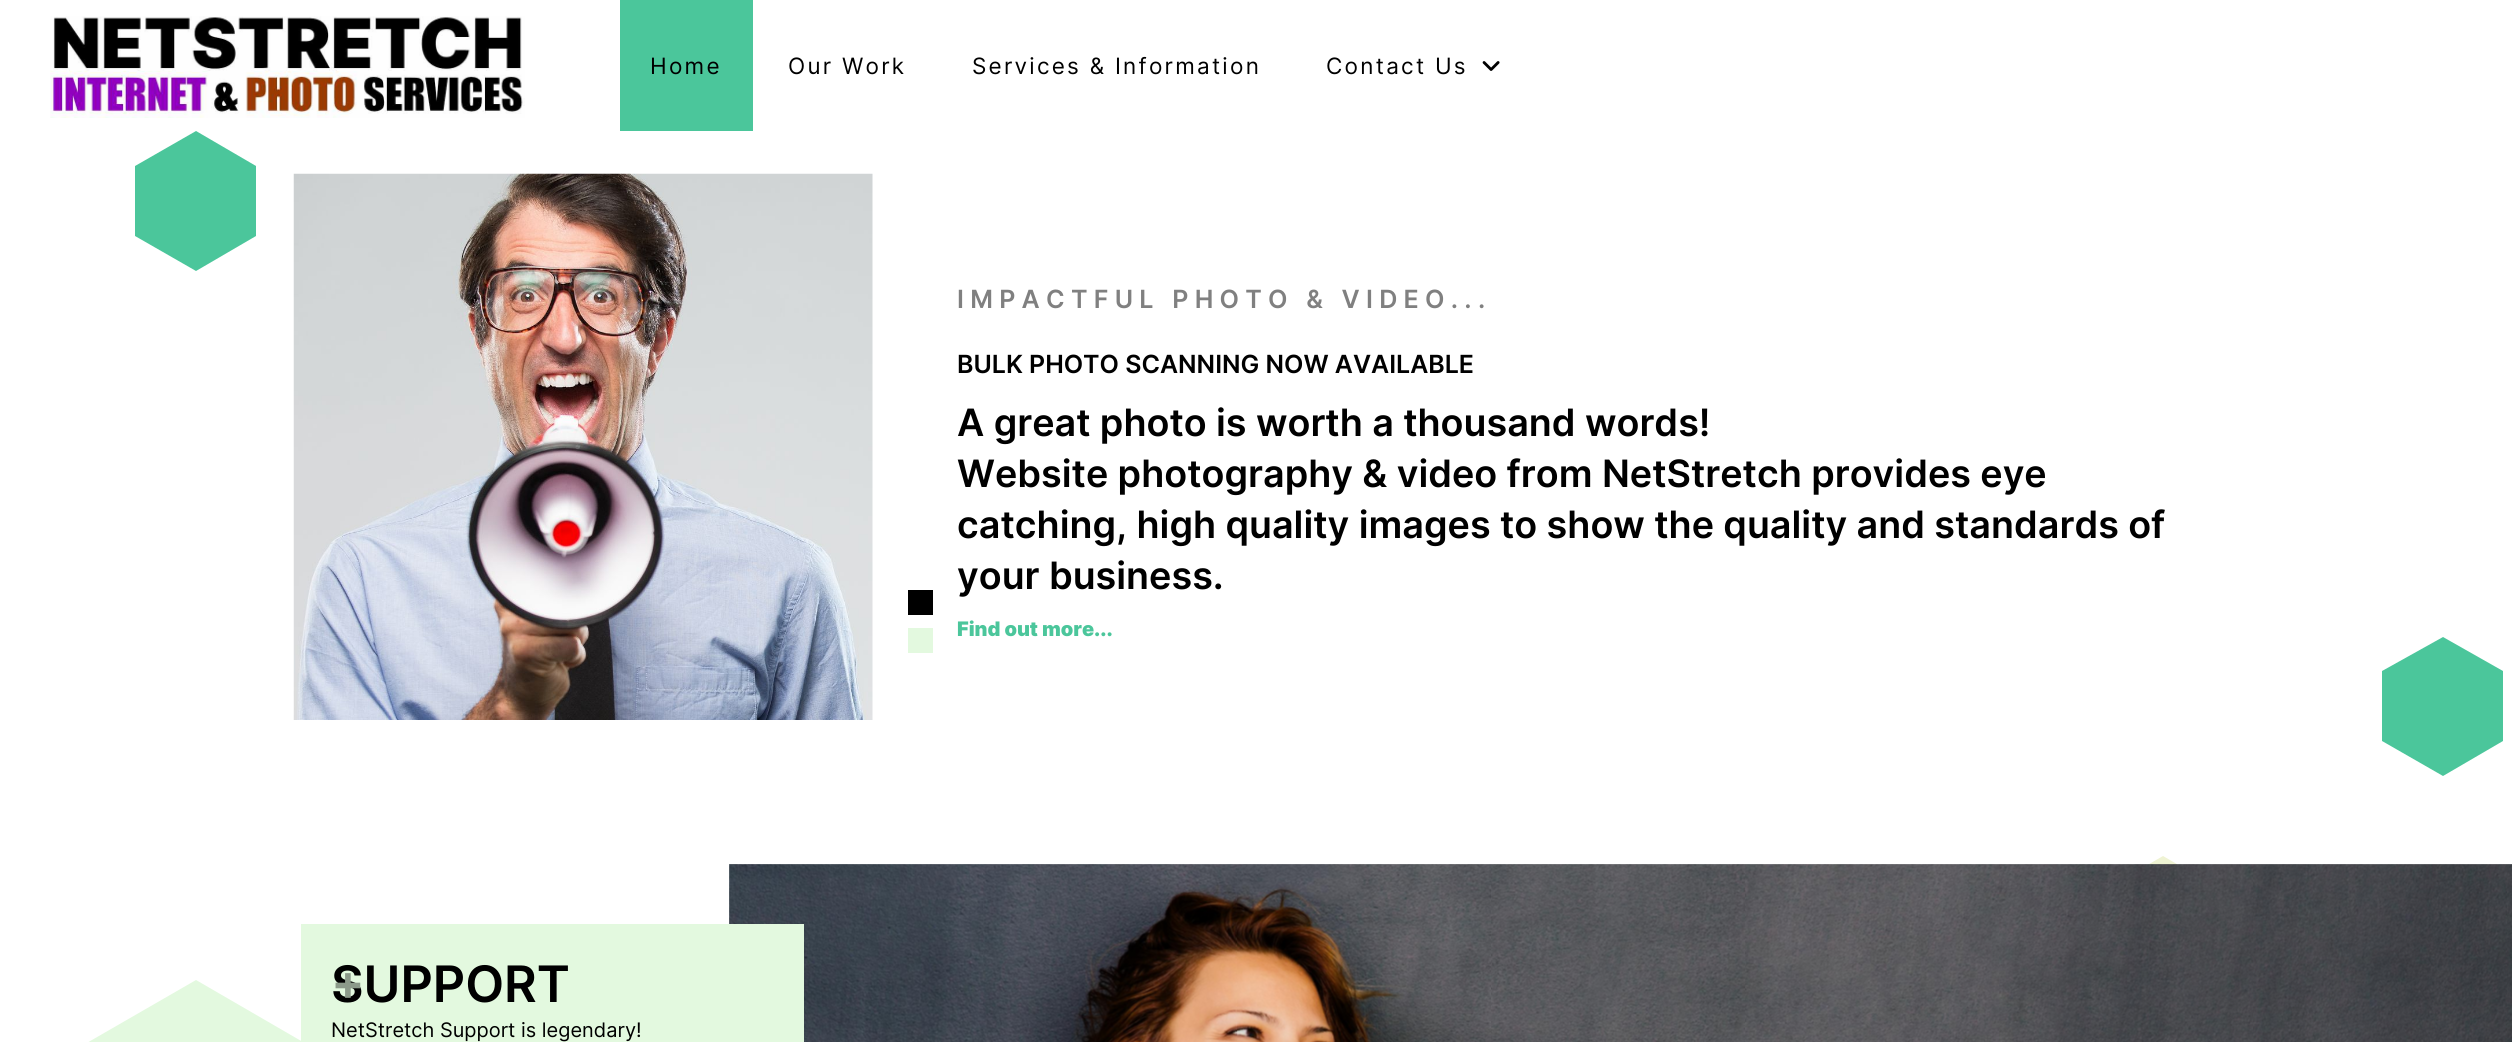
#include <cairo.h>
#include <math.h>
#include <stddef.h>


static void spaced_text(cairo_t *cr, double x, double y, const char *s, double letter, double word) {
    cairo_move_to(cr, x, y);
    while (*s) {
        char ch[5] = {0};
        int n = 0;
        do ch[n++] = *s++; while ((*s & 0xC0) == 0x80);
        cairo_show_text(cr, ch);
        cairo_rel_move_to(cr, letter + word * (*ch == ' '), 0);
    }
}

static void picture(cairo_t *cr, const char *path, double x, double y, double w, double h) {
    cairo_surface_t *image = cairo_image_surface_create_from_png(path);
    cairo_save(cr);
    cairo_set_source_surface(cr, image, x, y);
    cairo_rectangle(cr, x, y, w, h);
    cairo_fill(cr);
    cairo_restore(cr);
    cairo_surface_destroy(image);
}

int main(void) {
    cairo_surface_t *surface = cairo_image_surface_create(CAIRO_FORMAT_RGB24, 2512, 1042);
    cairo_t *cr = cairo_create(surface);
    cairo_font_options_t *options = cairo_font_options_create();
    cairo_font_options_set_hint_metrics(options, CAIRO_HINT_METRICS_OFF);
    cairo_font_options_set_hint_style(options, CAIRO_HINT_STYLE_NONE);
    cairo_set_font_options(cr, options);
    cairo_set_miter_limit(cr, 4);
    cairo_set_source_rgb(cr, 1, 1, 1);
    cairo_paint(cr);
    picture(cr, "img1.png", 50, 16, 475, 102);
    cairo_set_source_rgb(cr, 0.294, 0.776, 0.608);
    cairo_rectangle(cr, 620, 0, 133, 131);
    cairo_fill(cr);
    cairo_select_font_face(cr, "Inter", CAIRO_FONT_SLANT_NORMAL, CAIRO_FONT_WEIGHT_NORMAL);
    cairo_set_font_size(cr, 22.5);
    cairo_set_source_rgb(cr, 0, 0, 0);
    spaced_text(cr, 650, 74, "Home", 2.25, 0);
    spaced_text(cr, 788, 74, "Our Work", 2.25, 0);
    spaced_text(cr, 972, 74, "Services & Information", 2.25, 0);
    spaced_text(cr, 1326, 74, "Contact Us", 2.25, 0);
    picture(cr, "img2.png", 1482, 61, 18, 10);
    cairo_set_source_rgb(cr, 0.294, 0.776, 0.608);
    cairo_new_path(cr);
    cairo_move_to(cr, 196, 131);
    cairo_line_to(cr, 256, 166);
    cairo_line_to(cr, 256, 236);
    cairo_line_to(cr, 196, 271);
    cairo_line_to(cr, 135, 236);
    cairo_line_to(cr, 135, 166);
    cairo_close_path(cr);
    cairo_fill(cr);
    cairo_new_path(cr);
    cairo_move_to(cr, 2443, 637);
    cairo_line_to(cr, 2503, 671);
    cairo_line_to(cr, 2503, 741);
    cairo_line_to(cr, 2443, 776);
    cairo_line_to(cr, 2382, 741);
    cairo_line_to(cr, 2382, 671);
    cairo_close_path(cr);
    cairo_fill(cr);
    cairo_set_source_rgb(cr, 0.89, 0.976, 0.875);
    cairo_new_path(cr);
    cairo_move_to(cr, 196, 980);
    cairo_line_to(cr, 365, 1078);
    cairo_line_to(cr, 365, 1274);
    cairo_line_to(cr, 196, 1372);
    cairo_line_to(cr, 26, 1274);
    cairo_line_to(cr, 26, 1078);
    cairo_close_path(cr);
    cairo_fill(cr);
    cairo_set_source_rgb(cr, 0.937, 0.953, 0.827);
    cairo_new_path(cr);
    cairo_move_to(cr, 2163, 856);
    cairo_line_to(cr, 2332, 954);
    cairo_line_to(cr, 2332, 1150);
    cairo_line_to(cr, 2163, 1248);
    cairo_line_to(cr, 1993, 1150);
    cairo_line_to(cr, 1993, 954);
    cairo_close_path(cr);
    cairo_fill(cr);
    picture(cr, "img3.png", 293, 173, 580, 547);
    cairo_set_source_rgb(cr, 0, 0, 0);
    cairo_rectangle(cr, 908, 590, 25, 25);
    cairo_fill(cr);
    cairo_set_source_rgb(cr, 0.89, 0.976, 0.875);
    cairo_rectangle(cr, 908, 628, 25, 25);
    cairo_fill(cr);
    cairo_select_font_face(cr, "Inter SemiBold", CAIRO_FONT_SLANT_NORMAL, CAIRO_FONT_WEIGHT_NORMAL);
    cairo_set_font_size(cr, 25.1);
    cairo_set_source_rgb(cr, 0.502, 0.502, 0.502);
    spaced_text(cr, 957, 308, "IMPACTFUL PHOTO & VIDEO...", 6.25, 0);
    cairo_set_font_size(cr, 25);
    cairo_set_source_rgb(cr, 0, 0, 0);
    cairo_move_to(cr, 957, 373);
    cairo_show_text(cr, "BULK PHOTO SCANNING NOW AVAILABLE");
    cairo_set_font_size(cr, 37.7);
    cairo_move_to(cr, 957, 436);
    cairo_show_text(cr, "A great photo is worth a thousand words!");
    cairo_move_to(cr, 957, 487);
    cairo_show_text(cr, "Website photography & video from NetStretch provides eye");
    cairo_move_to(cr, 957, 538);
    cairo_show_text(cr, "catching, high quality images to show the quality and standards of");
    cairo_move_to(cr, 957, 589);
    cairo_show_text(cr, "your business.");
    cairo_select_font_face(cr, "Inter Black", CAIRO_FONT_SLANT_NORMAL, CAIRO_FONT_WEIGHT_NORMAL);
    cairo_set_font_size(cr, 20);
    cairo_set_source_rgb(cr, 0.294, 0.776, 0.608);
    cairo_move_to(cr, 957, 636);
    cairo_show_text(cr, "Find out more...");
    picture(cr, "img4.png", 729, 864, 1783, 178);
    cairo_set_source_rgb(cr, 0.89, 0.976, 0.875);
    cairo_rectangle(cr, 301, 924, 503, 118);
    cairo_fill(cr);
    cairo_select_font_face(cr, "Inter SemiBold", CAIRO_FONT_SLANT_NORMAL, CAIRO_FONT_WEIGHT_NORMAL);
    cairo_set_font_size(cr, 50.25);
    cairo_set_source_rgb(cr, 0, 0, 0);
    cairo_move_to(cr, 331, 1002);
    cairo_show_text(cr, "SUPPORT");
    cairo_set_source_rgb(cr, 0.549, 0.604, 0.541);
    cairo_move_to(cr, 331, 1000);
    cairo_show_text(cr, "+");
    cairo_select_font_face(cr, "Inter", CAIRO_FONT_SLANT_NORMAL, CAIRO_FONT_WEIGHT_NORMAL);
    cairo_set_font_size(cr, 20);
    cairo_set_source_rgb(cr, 0, 0, 0);
    cairo_move_to(cr, 331, 1037);
    cairo_show_text(cr, "NetStretch Support is legendary!");
    cairo_surface_write_to_png(surface, "page.png");
    cairo_font_options_destroy(options);
    cairo_destroy(cr);
    cairo_surface_destroy(surface);
    return 0;
}
